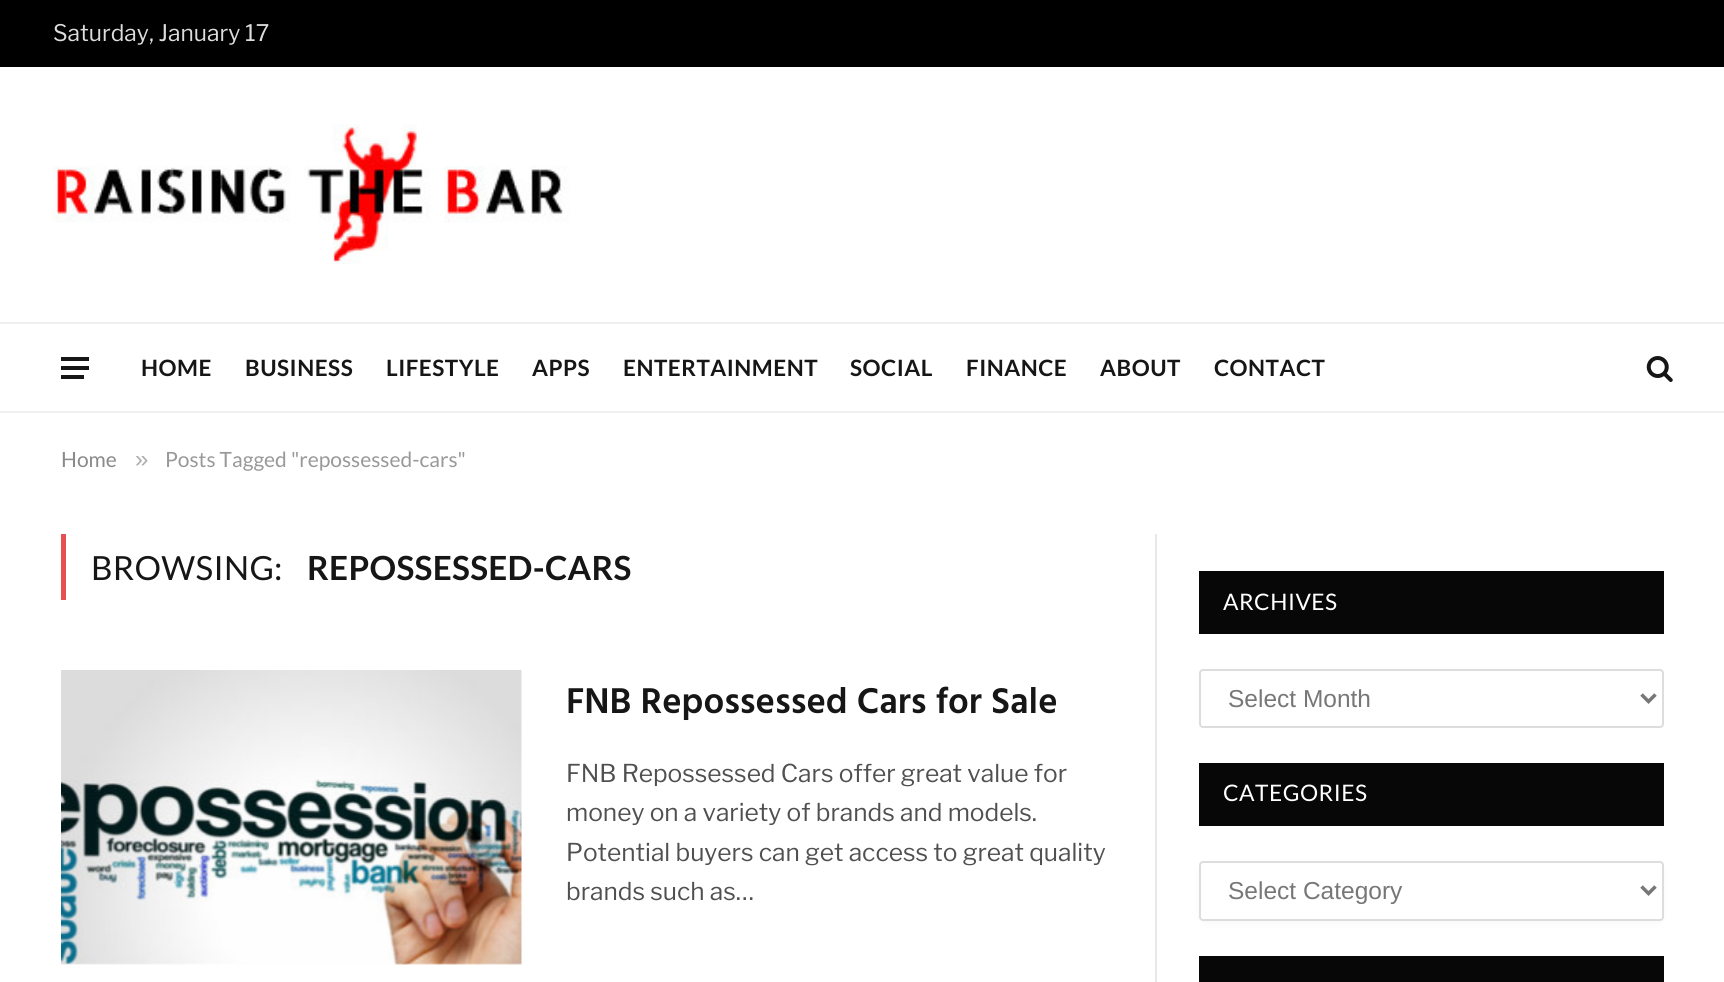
#include <cairo.h>
#include <math.h>
#include <stddef.h>


static void spaced_text(cairo_t *cr, double x, double y, const char *s, double letter, double word) {
    cairo_move_to(cr, x, y);
    while (*s) {
        char ch[5] = {0};
        int n = 0;
        do ch[n++] = *s++; while ((*s & 0xC0) == 0x80);
        cairo_show_text(cr, ch);
        cairo_rel_move_to(cr, letter + word * (*ch == ' '), 0);
    }
}

static void round_rect(cairo_t *cr, double x, double y, double w, double h, double r) {
    cairo_new_sub_path(cr);
    cairo_arc(cr, x + w - r, y + h - r, r, 0, M_PI / 2);
    cairo_arc(cr, x + r, y + h - r, r, M_PI / 2, M_PI);
    cairo_arc(cr, x + r, y + r, r, M_PI, 1.5 * M_PI);
    cairo_arc(cr, x + w - r, y + r, r, 1.5 * M_PI, 2 * M_PI);
    cairo_close_path(cr);
}

static void shadow(cairo_t *cr, double x, double y, double w, double h, double r, double blur, double alpha) {
    cairo_push_group_with_content(cr, CAIRO_CONTENT_ALPHA);
    cairo_set_operator(cr, CAIRO_OPERATOR_SOURCE);
    for (int i = 15; i >= -15 && fmin(w, h) + blur * i / 3 > 0; i -= 2) {
        double e = blur * i / 6;
        cairo_set_source_rgba(cr, 0, 0, 0, alpha * erfc((i - 1) / 8.5) / 2);
        round_rect(cr, x - e, y - e, w + 2 * e, h + 2 * e, fmax(0, fmin(r + e + blur * .6, fmin(w, h) / 2 + e)));
        cairo_fill(cr);
    }
    cairo_pattern_t *soft = cairo_pop_group(cr);
    cairo_mask(cr, soft);
    cairo_pattern_destroy(soft);
}

static void picture(cairo_t *cr, const char *path, double x, double y, double w, double h) {
    cairo_surface_t *image = cairo_image_surface_create_from_png(path);
    cairo_save(cr);
    cairo_set_source_surface(cr, image, x, y);
    cairo_rectangle(cr, x, y, w, h);
    cairo_fill(cr);
    cairo_restore(cr);
    cairo_surface_destroy(image);
}

int main(void) {
    cairo_surface_t *surface = cairo_image_surface_create(CAIRO_FORMAT_RGB24, 1724, 982);
    cairo_t *cr = cairo_create(surface);
    cairo_font_options_t *options = cairo_font_options_create();
    cairo_font_options_set_hint_metrics(options, CAIRO_HINT_METRICS_OFF);
    cairo_font_options_set_hint_style(options, CAIRO_HINT_STYLE_NONE);
    cairo_set_font_options(cr, options);
    cairo_set_miter_limit(cr, 4);
    cairo_set_source_rgb(cr, 1, 1, 1);
    cairo_paint(cr);
    cairo_set_source_rgb(cr, 0, 0, 0);
    cairo_rectangle(cr, 0, 0, 1724, 67);
    cairo_fill(cr);
    cairo_select_font_face(cr, "Libre Franklin", CAIRO_FONT_SLANT_NORMAL, CAIRO_FONT_WEIGHT_NORMAL);
    cairo_set_font_size(cr, 22.75);
    cairo_set_source_rgb(cr, 0.867, 0.867, 0.867);
    cairo_move_to(cr, 53, 41);
    cairo_show_text(cr, "Saturday, January 17");
    picture(cr, "img1.png", 52, 124, 518, 141);
    cairo_set_source_rgb(cr, 0.937, 0.937, 0.937);
    cairo_rectangle(cr, 0, 322, 1724, 2);
    cairo_fill(cr);
    cairo_rectangle(cr, 0, 411, 1724, 2);
    cairo_fill(cr);
    cairo_set_source_rgb(cr, 0.086, 0.086, 0.086);
    cairo_rectangle(cr, 61, 375, 23, 4);
    cairo_fill(cr);
    cairo_rectangle(cr, 61, 357, 28, 4);
    cairo_fill(cr);
    cairo_rectangle(cr, 61, 366, 28, 4);
    cairo_fill(cr);
    cairo_select_font_face(cr, "Lato", CAIRO_FONT_SLANT_NORMAL, CAIRO_FONT_WEIGHT_BOLD);
    cairo_set_font_size(cr, 22.5);
    spaced_text(cr, 141, 376, "HOME", 0.5, 0);
    spaced_text(cr, 245, 376, "BUSINESS", 0.5, 0);
    spaced_text(cr, 386, 376, "LIFESTYLE", 0.5, 0);
    spaced_text(cr, 532, 376, "APPS", 0.5, 0);
    spaced_text(cr, 623, 376, "ENTERTAINMENT", 0.5, 0);
    spaced_text(cr, 850, 376, "SOCIAL", 0.5, 0);
    spaced_text(cr, 966, 376, "FINANCE", 0.5, 0);
    spaced_text(cr, 1100, 376, "ABOUT", 0.5, 0);
    spaced_text(cr, 1214, 376, "CONTACT", 0.5, 0);
    picture(cr, "img2.png", 1646, 356, 27, 26);
    cairo_select_font_face(cr, "Lato", CAIRO_FONT_SLANT_NORMAL, CAIRO_FONT_WEIGHT_NORMAL);
    cairo_set_font_size(cr, 21);
    cairo_set_source_rgb(cr, 0.541, 0.541, 0.541);
    cairo_move_to(cr, 61, 467);
    cairo_show_text(cr, "Home");
    cairo_select_font_face(cr, "Liberation Sans", CAIRO_FONT_SLANT_NORMAL, CAIRO_FONT_WEIGHT_NORMAL);
    cairo_set_font_size(cr, 24);
    cairo_set_source_rgb(cr, 0.678, 0.678, 0.678);
    cairo_move_to(cr, 135, 467);
    cairo_show_text(cr, "»");
    cairo_select_font_face(cr, "Lato", CAIRO_FONT_SLANT_NORMAL, CAIRO_FONT_WEIGHT_NORMAL);
    cairo_set_font_size(cr, 21);
    cairo_set_source_rgb(cr, 0.6, 0.6, 0.6);
    cairo_move_to(cr, 165, 467);
    cairo_show_text(cr, "Posts Tagged \"repossessed-cars\"");
    cairo_set_source_rgb(cr, 0.898, 0.306, 0.325);
    cairo_rectangle(cr, 61, 534, 5, 66);
    cairo_fill(cr);
    cairo_set_font_size(cr, 33.25);
    cairo_set_source_rgb(cr, 0.086, 0.086, 0.086);
    spaced_text(cr, 91, 580, "BROWSING:", 0.3, 0);
    cairo_select_font_face(cr, "Lato", CAIRO_FONT_SLANT_NORMAL, CAIRO_FONT_WEIGHT_BOLD);
    spaced_text(cr, 307, 580, "REPOSSESSED-CARS", 0.3, 0);
    picture(cr, "img3.png", 61, 670, 461, 295);
    cairo_select_font_face(cr, "Hind SemiBold", CAIRO_FONT_SLANT_NORMAL, CAIRO_FONT_WEIGHT_NORMAL);
    cairo_set_font_size(cr, 36.75);
    cairo_move_to(cr, 566, 713);
    cairo_show_text(cr, "FNB Repossessed Cars for Sale");
    cairo_select_font_face(cr, "Libre Franklin", CAIRO_FONT_SLANT_NORMAL, CAIRO_FONT_WEIGHT_NORMAL);
    cairo_set_font_size(cr, 24.5);
    cairo_set_source_rgb(cr, 0.314, 0.314, 0.314);
    cairo_move_to(cr, 566, 782);
    cairo_show_text(cr, "FNB Repossessed Cars offer great value for");
    cairo_move_to(cr, 566, 821);
    cairo_show_text(cr, "money on a variety of brands and models.");
    cairo_move_to(cr, 566, 861);
    cairo_show_text(cr, "Potential buyers can get access to great quality");
    cairo_move_to(cr, 566, 900);
    cairo_show_text(cr, "brands such as…");
    cairo_set_source_rgb(cr, 0.91, 0.91, 0.91);
    cairo_rectangle(cr, 1155, 534, 2, 448);
    cairo_fill(cr);
    cairo_set_source_rgb(cr, 0.031, 0.031, 0.031);
    cairo_rectangle(cr, 1199, 571, 465, 63);
    cairo_fill(cr);
    cairo_select_font_face(cr, "Lato", CAIRO_FONT_SLANT_NORMAL, CAIRO_FONT_WEIGHT_NORMAL);
    cairo_set_font_size(cr, 22.75);
    cairo_set_source_rgb(cr, 1, 1, 1);
    spaced_text(cr, 1223, 610, "ARCHIVES", 0.5, 0);
    round_rect(cr, 1200, 670, 463, 57, 3);
    cairo_set_source_rgb(cr, 0.867, 0.867, 0.867);
    cairo_stroke(cr);
    cairo_new_path(cr);
    cairo_move_to(cr, 1641.5, 694.5);
    cairo_line_to(cr, 1648.5, 701.5);
    cairo_line_to(cr, 1655.5, 694.5);
    cairo_set_source_rgb(cr, 0.467, 0.467, 0.467);
    cairo_set_line_width(cr, 3.5);
    cairo_stroke(cr);
    cairo_select_font_face(cr, "Liberation Sans", CAIRO_FONT_SLANT_NORMAL, CAIRO_FONT_WEIGHT_NORMAL);
    cairo_set_font_size(cr, 24.5);
    cairo_move_to(cr, 1228, 707);
    cairo_show_text(cr, "Select Month");
    cairo_set_source_rgb(cr, 0.031, 0.031, 0.031);
    cairo_rectangle(cr, 1199, 763, 465, 63);
    cairo_fill(cr);
    cairo_select_font_face(cr, "Lato", CAIRO_FONT_SLANT_NORMAL, CAIRO_FONT_WEIGHT_NORMAL);
    cairo_set_font_size(cr, 22.75);
    cairo_set_source_rgb(cr, 1, 1, 1);
    spaced_text(cr, 1223, 801, "CATEGORIES", 0.5, 0);
    cairo_set_source_rgb(cr, 0, 0, 0);
    shadow(cr, 1206, 872, 451, 45, 0, 6, 0.1);
    cairo_set_source_rgb(cr, 1, 1, 1);
    round_rect(cr, 1200, 862, 463, 58, 3);
    cairo_fill_preserve(cr);
    cairo_set_source_rgb(cr, 0.867, 0.867, 0.867);
    cairo_set_line_width(cr, 2);
    cairo_stroke(cr);
    cairo_new_path(cr);
    cairo_move_to(cr, 1641.5, 886.5);
    cairo_line_to(cr, 1648.5, 893.5);
    cairo_line_to(cr, 1655.5, 886.5);
    cairo_set_source_rgb(cr, 0.467, 0.467, 0.467);
    cairo_set_line_width(cr, 3.5);
    cairo_stroke(cr);
    cairo_select_font_face(cr, "Liberation Sans", CAIRO_FONT_SLANT_NORMAL, CAIRO_FONT_WEIGHT_NORMAL);
    cairo_set_font_size(cr, 24.5);
    cairo_move_to(cr, 1228, 899);
    cairo_show_text(cr, "Select Category");
    cairo_set_source_rgb(cr, 0.031, 0.031, 0.031);
    cairo_rectangle(cr, 1199, 956, 465, 26);
    cairo_fill(cr);
    cairo_surface_write_to_png(surface, "page.png");
    cairo_font_options_destroy(options);
    cairo_destroy(cr);
    cairo_surface_destroy(surface);
    return 0;
}
